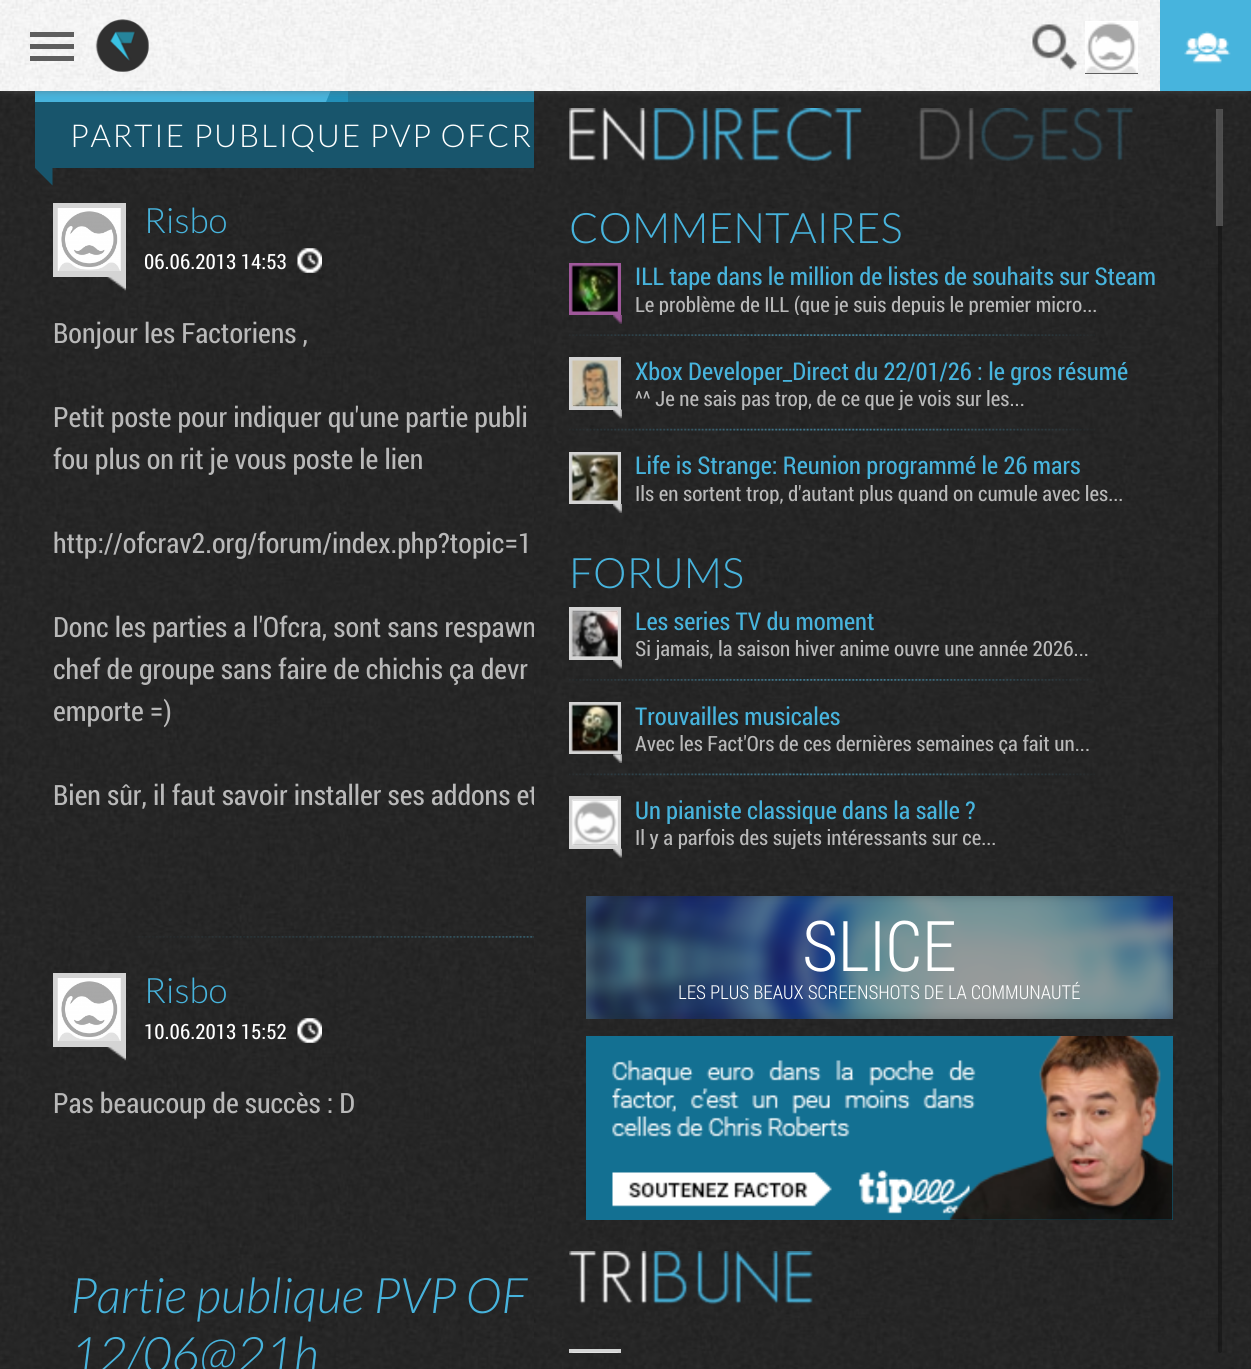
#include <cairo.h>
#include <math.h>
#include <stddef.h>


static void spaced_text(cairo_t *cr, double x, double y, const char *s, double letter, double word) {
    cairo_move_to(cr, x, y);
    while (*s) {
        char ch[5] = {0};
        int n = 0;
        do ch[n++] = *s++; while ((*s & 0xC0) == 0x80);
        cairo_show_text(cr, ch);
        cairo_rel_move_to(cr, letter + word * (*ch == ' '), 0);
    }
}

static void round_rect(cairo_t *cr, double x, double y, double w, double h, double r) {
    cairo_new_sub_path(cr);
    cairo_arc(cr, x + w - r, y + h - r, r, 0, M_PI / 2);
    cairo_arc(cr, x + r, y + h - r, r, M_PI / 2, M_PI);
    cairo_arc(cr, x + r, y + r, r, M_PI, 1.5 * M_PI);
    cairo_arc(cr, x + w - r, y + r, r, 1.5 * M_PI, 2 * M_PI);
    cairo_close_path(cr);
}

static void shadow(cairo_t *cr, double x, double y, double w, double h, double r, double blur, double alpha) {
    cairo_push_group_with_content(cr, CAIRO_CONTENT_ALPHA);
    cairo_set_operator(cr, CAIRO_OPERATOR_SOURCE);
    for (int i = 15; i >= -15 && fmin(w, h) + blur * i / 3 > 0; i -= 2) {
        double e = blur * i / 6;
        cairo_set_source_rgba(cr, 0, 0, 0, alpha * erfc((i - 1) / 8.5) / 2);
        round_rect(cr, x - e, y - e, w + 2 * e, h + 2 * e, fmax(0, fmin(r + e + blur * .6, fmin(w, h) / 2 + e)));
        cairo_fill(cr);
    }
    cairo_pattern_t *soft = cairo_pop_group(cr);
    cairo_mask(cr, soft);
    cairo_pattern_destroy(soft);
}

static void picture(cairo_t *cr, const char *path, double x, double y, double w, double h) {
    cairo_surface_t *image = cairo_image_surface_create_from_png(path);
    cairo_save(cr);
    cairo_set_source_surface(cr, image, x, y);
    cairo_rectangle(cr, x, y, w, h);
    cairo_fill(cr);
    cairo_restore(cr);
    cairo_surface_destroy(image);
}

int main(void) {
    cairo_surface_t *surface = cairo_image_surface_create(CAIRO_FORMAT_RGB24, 1251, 1369);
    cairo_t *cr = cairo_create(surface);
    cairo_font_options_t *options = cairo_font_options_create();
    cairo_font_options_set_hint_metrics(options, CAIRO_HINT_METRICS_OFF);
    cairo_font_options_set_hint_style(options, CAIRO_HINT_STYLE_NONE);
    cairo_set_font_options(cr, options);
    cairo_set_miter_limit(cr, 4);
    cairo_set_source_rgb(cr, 1, 1, 1);
    cairo_paint(cr);
    picture(cr, "img6.png", 0, 91, 1251, 1278);
    cairo_set_source_rgb(cr, 0.133, 0.565, 0.725);
    cairo_rectangle(cr, 326, 91, 22, 11);
    cairo_fill(cr);
    cairo_set_source_rgb(cr, 0.278, 0.706, 0.867);
    cairo_rectangle(cr, 35, 91, 291, 11);
    cairo_fill(cr);
    cairo_new_path(cr);
    cairo_move_to(cr, 326, 102);
    cairo_line_to(cr, 326, 35);
    cairo_line_to(cr, 340, 68);
    cairo_close_path(cr);
    cairo_fill(cr);
    cairo_set_source_rgb(cr, 0.122, 0.478, 0.612);
    cairo_rectangle(cr, 348, 91, 186, 11);
    cairo_fill(cr);
    cairo_set_source_rgb(cr, 0.094, 0.333, 0.424);
    cairo_rectangle(cr, 35, 102, 499, 66);
    cairo_fill(cr);
    cairo_select_font_face(cr, "Roboto Condensed", CAIRO_FONT_SLANT_NORMAL, CAIRO_FONT_WEIGHT_NORMAL);
    cairo_set_font_size(cr, 28);
    cairo_set_source_rgb(cr, 0.725, 0.725, 0.725);
    cairo_move_to(cr, 53, 637);
    cairo_show_text(cr, "Donc les parties a l'Ofcra, sont sans respawn");
    cairo_move_to(cr, 53, 805);
    cairo_show_text(cr, "Bien sûr, il faut savoir installer ses addons et");
    picture(cr, "img13.png", 534, 91, 717, 1278);
    cairo_set_source_rgb(cr, 0.369, 0.369, 0.369);
    shadow(cr, 4, 4, 1244, 84, 0, 5, 1);
    picture(cr, "img1.png", 0, 0, 1160, 91);
    cairo_set_source_rgb(cr, 0.369, 0.369, 0.369);
    cairo_rectangle(cr, 30, 32, 44, 5);
    cairo_fill(cr);
    cairo_rectangle(cr, 30, 44, 44, 5);
    cairo_fill(cr);
    cairo_rectangle(cr, 30, 56, 44, 5);
    cairo_fill(cr);
    picture(cr, "img2.png", 95, 19, 54, 53);
    picture(cr, "img3.png", 1032, 24, 45, 47);
    cairo_rectangle(cr, 1085, 73, 53, 1);
    cairo_fill(cr);
    picture(cr, "img4.png", 1085, 21, 53, 52);
    cairo_set_source_rgb(cr, 0.278, 0.706, 0.867);
    cairo_rectangle(cr, 1160, 0, 91, 91);
    cairo_fill(cr);
    picture(cr, "img5.png", 1184, 31, 47, 33);
    cairo_select_font_face(cr, "Lato Light", CAIRO_FONT_SLANT_NORMAL, CAIRO_FONT_WEIGHT_NORMAL);
    cairo_set_font_size(cr, 31.5);
    cairo_set_source_rgb(cr, 1, 1, 1);
    spaced_text(cr, 70, 147, "PARTIE PUBLIQUE PVP OFCR", 1.75, 0);
    cairo_set_source_rgb(cr, 0.094, 0.333, 0.424);
    cairo_new_path(cr);
    cairo_move_to(cr, 52.5, 168);
    cairo_line_to(cr, 52.5, 185.5);
    cairo_line_to(cr, 35, 168);
    cairo_close_path(cr);
    cairo_fill(cr);
    cairo_set_source_rgb(cr, 0.831, 0.831, 0.831);
    cairo_rectangle(cr, 53, 203, 73, 74);
    cairo_fill(cr);
    picture(cr, "img7.png", 57, 208, 64, 63);
    picture(cr, "img8.png", 106, 277, 20, 14);
    cairo_set_font_size(cr, 35);
    cairo_set_source_rgb(cr, 0.278, 0.706, 0.867);
    cairo_move_to(cr, 144, 233);
    cairo_show_text(cr, "Risbo");
    cairo_select_font_face(cr, "Roboto Condensed", CAIRO_FONT_SLANT_NORMAL, CAIRO_FONT_WEIGHT_NORMAL);
    cairo_set_font_size(cr, 21);
    cairo_set_source_rgb(cr, 1, 1, 1);
    cairo_move_to(cr, 144, 269);
    cairo_show_text(cr, "06.06.2013 14:53");
    picture(cr, "img9.png", 297, 248, 25, 25);
    cairo_set_font_size(cr, 28);
    cairo_set_source_rgb(cr, 0.725, 0.725, 0.725);
    cairo_move_to(cr, 53, 343);
    cairo_show_text(cr, "Bonjour les Factoriens ,");
    cairo_move_to(cr, 53, 427);
    cairo_show_text(cr, "Petit poste pour indiquer qu'une partie publi");
    cairo_move_to(cr, 53, 469);
    cairo_show_text(cr, "fou plus on rit je vous poste le lien");
    cairo_move_to(cr, 53, 553);
    cairo_show_text(cr, "http://ofcrav2.org/forum/index.php?topic=1");
    cairo_move_to(cr, 53, 679);
    cairo_show_text(cr, "chef de groupe sans faire de chichis ça devr");
    cairo_move_to(cr, 53, 721);
    cairo_show_text(cr, "emporte =)");
    picture(cr, "img10.png", 135, 936, 399, 2);
    cairo_set_source_rgb(cr, 0.831, 0.831, 0.831);
    cairo_rectangle(cr, 53, 973, 73, 74);
    cairo_fill(cr);
    picture(cr, "img7.png", 57, 978, 64, 63);
    picture(cr, "img11.png", 106, 1047, 20, 14);
    cairo_select_font_face(cr, "Lato Light", CAIRO_FONT_SLANT_NORMAL, CAIRO_FONT_WEIGHT_NORMAL);
    cairo_set_font_size(cr, 35);
    cairo_set_source_rgb(cr, 0.278, 0.706, 0.867);
    cairo_move_to(cr, 144, 1003);
    cairo_show_text(cr, "Risbo");
    cairo_select_font_face(cr, "Roboto Condensed", CAIRO_FONT_SLANT_NORMAL, CAIRO_FONT_WEIGHT_NORMAL);
    cairo_set_font_size(cr, 21);
    cairo_set_source_rgb(cr, 1, 1, 1);
    cairo_move_to(cr, 144, 1039);
    cairo_show_text(cr, "10.06.2013 15:52");
    picture(cr, "img12.png", 297, 1018, 25, 25);
    cairo_set_font_size(cr, 28);
    cairo_set_source_rgb(cr, 0.725, 0.725, 0.725);
    cairo_move_to(cr, 53, 1113);
    cairo_show_text(cr, "Pas beaucoup de succès : D");
    cairo_select_font_face(cr, "Lato Light", CAIRO_FONT_SLANT_ITALIC, CAIRO_FONT_WEIGHT_NORMAL);
    cairo_set_font_size(cr, 49);
    cairo_set_source_rgb(cr, 0.278, 0.706, 0.867);
    cairo_move_to(cr, 70, 1313);
    cairo_show_text(cr, "Partie publique PVP OF");
    cairo_move_to(cr, 70, 1372);
    cairo_show_text(cr, "12/06@21h");
    picture(cr, "img14.png", 569, 108, 293, 53);
    picture(cr, "img15.png", 919, 108, 214, 53);
    cairo_select_font_face(cr, "Lato Light", CAIRO_FONT_SLANT_NORMAL, CAIRO_FONT_WEIGHT_NORMAL);
    cairo_set_font_size(cr, 42);
    cairo_move_to(cr, 569, 243);
    cairo_show_text(cr, "COMMENTAIRES");
    cairo_rectangle(cr, 571, 265, 48, 48);
    cairo_set_source_rgb(cr, 0.624, 0.345, 0.604);
    cairo_set_line_width(cr, 4);
    cairo_stroke(cr);
    picture(cr, "img16.png", 571, 265, 47, 47);
    picture(cr, "img17.png", 613, 315, 9, 9);
    cairo_select_font_face(cr, "Roboto Condensed", CAIRO_FONT_SLANT_NORMAL, CAIRO_FONT_WEIGHT_NORMAL);
    cairo_set_font_size(cr, 24.5);
    cairo_set_source_rgb(cr, 0.278, 0.706, 0.867);
    cairo_move_to(cr, 635, 285);
    cairo_show_text(cr, "ILL tape dans le million de listes de souhaits sur Steam");
    cairo_save(cr);
    cairo_rectangle(cr, 635, 291, 555, 24);
    cairo_clip(cr);
    cairo_set_font_size(cr, 21);
    cairo_set_source_rgb(cr, 0.725, 0.725, 0.725);
    cairo_move_to(cr, 635, 312);
    cairo_show_text(cr, "Le problème de ILL (que je suis depuis le premier micro...");
    cairo_restore(cr);
    picture(cr, "img18.png", 569, 334, 526, 2);
    cairo_rectangle(cr, 571, 359, 48, 49);
    cairo_set_source_rgb(cr, 0.831, 0.831, 0.831);
    cairo_stroke(cr);
    picture(cr, "img19.png", 571, 360, 47, 47);
    picture(cr, "img20.png", 613, 409, 9, 10);
    cairo_set_source_rgb(cr, 0.278, 0.706, 0.867);
    cairo_move_to(cr, 635, 380);
    cairo_show_text(cr, "Xbox Developer_Direct du 22/01/26 : le gros résumé");
    cairo_set_font_size(cr, 21);
    cairo_set_source_rgb(cr, 0.725, 0.725, 0.725);
    cairo_move_to(cr, 635, 406);
    cairo_show_text(cr, "^^");
    cairo_save(cr);
    cairo_rectangle(cr, 635, 385, 555, 25);
    cairo_clip(cr);
    cairo_move_to(cr, 655, 406);
    cairo_show_text(cr, "Je ne sais pas trop, de ce que je vois sur les...");
    cairo_restore(cr);
    picture(cr, "img21.png", 569, 428, 526, 3);
    cairo_rectangle(cr, 571, 454, 48, 48);
    cairo_set_source_rgb(cr, 0.831, 0.831, 0.831);
    cairo_stroke(cr);
    picture(cr, "img22.png", 571, 454, 47, 47);
    picture(cr, "img23.png", 613, 504, 9, 9);
    cairo_set_font_size(cr, 24.5);
    cairo_set_source_rgb(cr, 0.278, 0.706, 0.867);
    cairo_move_to(cr, 635, 474);
    cairo_show_text(cr, "Life is Strange: Reunion programmé le 26 mars");
    cairo_save(cr);
    cairo_rectangle(cr, 635, 480, 555, 24);
    cairo_clip(cr);
    cairo_set_font_size(cr, 21);
    cairo_set_source_rgb(cr, 0.725, 0.725, 0.725);
    cairo_move_to(cr, 635, 501);
    cairo_show_text(cr, "Ils en sortent trop, d'autant plus quand on cumule avec les...");
    cairo_restore(cr);
    cairo_select_font_face(cr, "Lato Light", CAIRO_FONT_SLANT_NORMAL, CAIRO_FONT_WEIGHT_NORMAL);
    cairo_set_font_size(cr, 42);
    cairo_move_to(cr, 569, 588);
    cairo_show_text(cr, "FORUMS");
    cairo_rectangle(cr, 571, 609, 48, 49);
    cairo_set_source_rgb(cr, 0.831, 0.831, 0.831);
    cairo_stroke(cr);
    picture(cr, "img24.png", 571, 610, 47, 47);
    picture(cr, "img25.png", 613, 659, 9, 10);
    cairo_select_font_face(cr, "Roboto Condensed", CAIRO_FONT_SLANT_NORMAL, CAIRO_FONT_WEIGHT_NORMAL);
    cairo_set_font_size(cr, 24.5);
    cairo_set_source_rgb(cr, 0.278, 0.706, 0.867);
    cairo_move_to(cr, 635, 630);
    cairo_show_text(cr, "Les series TV du moment");
    cairo_save(cr);
    cairo_rectangle(cr, 635, 635, 555, 25);
    cairo_clip(cr);
    cairo_set_font_size(cr, 21);
    cairo_set_source_rgb(cr, 0.725, 0.725, 0.725);
    cairo_move_to(cr, 635, 656);
    cairo_show_text(cr, "Si jamais, la saison hiver anime ouvre une année 2026...");
    cairo_restore(cr);
    picture(cr, "img26.png", 569, 679, 526, 2);
    cairo_rectangle(cr, 571, 704, 48, 48);
    cairo_set_source_rgb(cr, 0.831, 0.831, 0.831);
    cairo_stroke(cr);
    picture(cr, "img27.png", 571, 704, 47, 48);
    picture(cr, "img28.png", 613, 754, 9, 9);
    cairo_set_source_rgb(cr, 0.278, 0.706, 0.867);
    cairo_move_to(cr, 635, 725);
    cairo_show_text(cr, "Trouvailles musicales");
    cairo_save(cr);
    cairo_rectangle(cr, 635, 730, 555, 24);
    cairo_clip(cr);
    cairo_set_font_size(cr, 21);
    cairo_set_source_rgb(cr, 0.725, 0.725, 0.725);
    cairo_move_to(cr, 635, 751);
    cairo_show_text(cr, "Avec les Fact'Ors de ces dernières semaines ça fait un...");
    cairo_restore(cr);
    picture(cr, "img29.png", 569, 773, 526, 3);
    cairo_rectangle(cr, 571, 798, 48, 49);
    cairo_set_source_rgb(cr, 0.831, 0.831, 0.831);
    cairo_stroke(cr);
    picture(cr, "img30.png", 571, 799, 47, 47);
    picture(cr, "img31.png", 613, 848, 9, 10);
    cairo_set_source_rgb(cr, 0.278, 0.706, 0.867);
    cairo_move_to(cr, 635, 819);
    cairo_show_text(cr, "Un pianiste classique dans la salle ?");
    cairo_save(cr);
    cairo_rectangle(cr, 635, 824, 555, 25);
    cairo_clip(cr);
    cairo_set_font_size(cr, 21);
    cairo_set_source_rgb(cr, 0.725, 0.725, 0.725);
    cairo_move_to(cr, 635, 845);
    cairo_show_text(cr, "Il y a parfois des sujets intéressants sur ce...");
    cairo_restore(cr);
    cairo_set_source_rgb(cr, 0.149, 0.149, 0.149);
    cairo_rectangle(cr, 586, 896, 587, 123);
    cairo_fill(cr);
    picture(cr, "img32.png", 586, 896, 587, 123);
    cairo_select_font_face(cr, "Roboto Condensed Light", CAIRO_FONT_SLANT_NORMAL, CAIRO_FONT_WEIGHT_NORMAL);
    cairo_set_font_size(cr, 70);
    cairo_set_source_rgb(cr, 1, 1, 1);
    cairo_move_to(cr, 802, 971);
    cairo_show_text(cr, "SLICE");
    cairo_set_font_size(cr, 19.25);
    cairo_move_to(cr, 678, 999);
    cairo_show_text(cr, "LES PLUS BEAUX SCREENSHOTS DE LA COMMUNAUTÉ");
    cairo_set_source_rgb(cr, 0.075, 0.439, 0.573);
    cairo_rectangle(cr, 586, 1036, 587, 184);
    cairo_fill(cr);
    picture(cr, "img33.png", 612, 1036, 561, 184);
    picture(cr, "img34.png", 569, 1251, 244, 54);
    cairo_save(cr);
    cairo_rectangle(cr, 569, 1349, 621, 4);
    cairo_clip(cr);
    cairo_rectangle(cr, 571, 1351, 48, 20);
    cairo_set_source_rgb(cr, 0.831, 0.831, 0.831);
    cairo_stroke(cr);
    cairo_restore(cr);
    picture(cr, "img35.png", 572, 1352, 46, 1);
    cairo_set_source_rgba(cr, 0, 0, 0, 0.3);
    round_rect(cr, 1218, 109, 4, 1244, 2);
    cairo_fill(cr);
    cairo_set_source_rgba(cr, 0.369, 0.369, 0.369, 0.75);
    cairo_rectangle(cr, 1216, 109, 7, 117);
    cairo_fill(cr);
    cairo_surface_write_to_png(surface, "page.png");
    cairo_font_options_destroy(options);
    cairo_destroy(cr);
    cairo_surface_destroy(surface);
    return 0;
}
